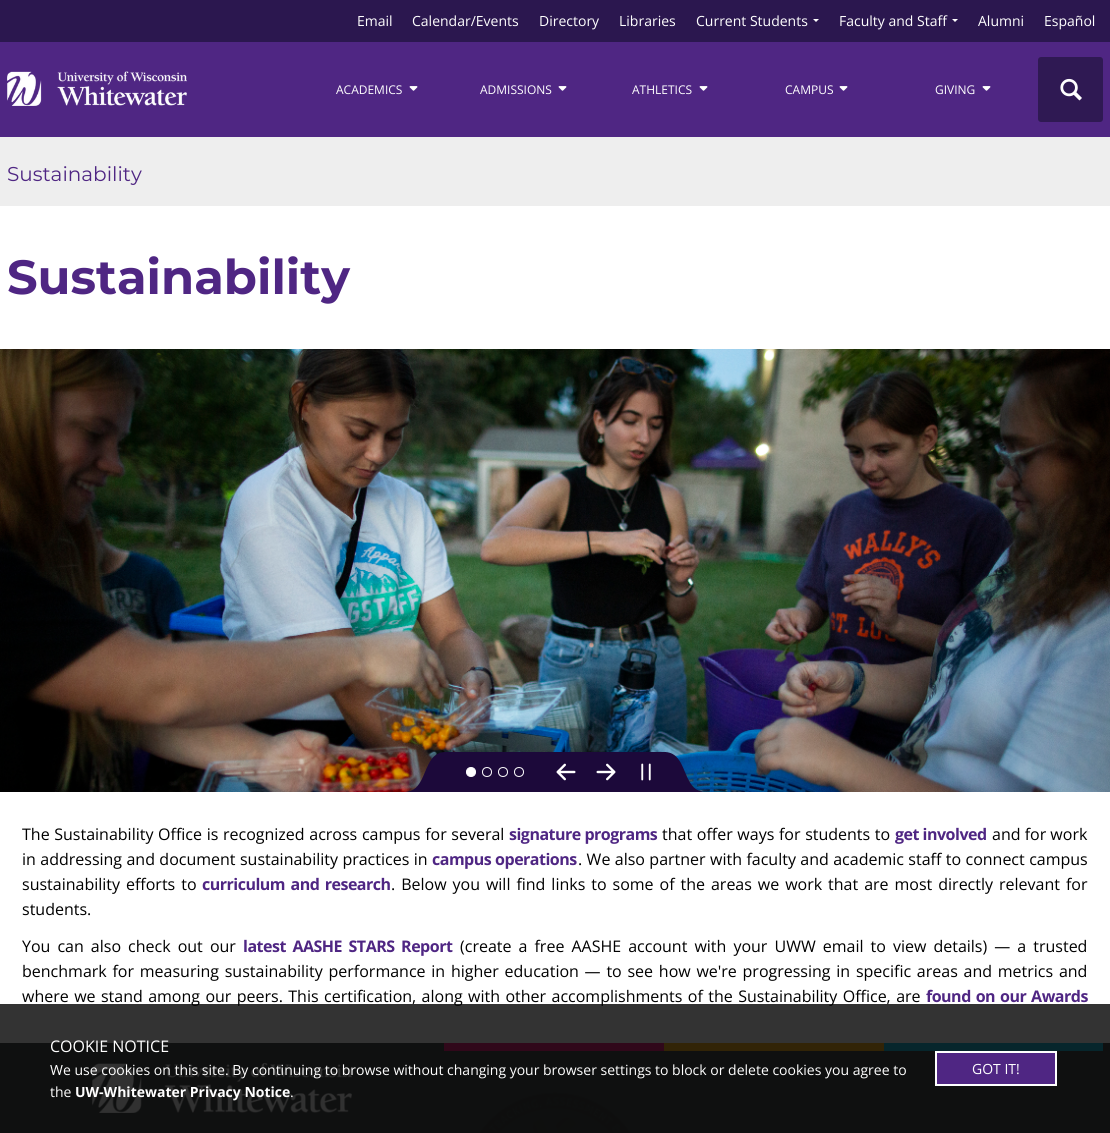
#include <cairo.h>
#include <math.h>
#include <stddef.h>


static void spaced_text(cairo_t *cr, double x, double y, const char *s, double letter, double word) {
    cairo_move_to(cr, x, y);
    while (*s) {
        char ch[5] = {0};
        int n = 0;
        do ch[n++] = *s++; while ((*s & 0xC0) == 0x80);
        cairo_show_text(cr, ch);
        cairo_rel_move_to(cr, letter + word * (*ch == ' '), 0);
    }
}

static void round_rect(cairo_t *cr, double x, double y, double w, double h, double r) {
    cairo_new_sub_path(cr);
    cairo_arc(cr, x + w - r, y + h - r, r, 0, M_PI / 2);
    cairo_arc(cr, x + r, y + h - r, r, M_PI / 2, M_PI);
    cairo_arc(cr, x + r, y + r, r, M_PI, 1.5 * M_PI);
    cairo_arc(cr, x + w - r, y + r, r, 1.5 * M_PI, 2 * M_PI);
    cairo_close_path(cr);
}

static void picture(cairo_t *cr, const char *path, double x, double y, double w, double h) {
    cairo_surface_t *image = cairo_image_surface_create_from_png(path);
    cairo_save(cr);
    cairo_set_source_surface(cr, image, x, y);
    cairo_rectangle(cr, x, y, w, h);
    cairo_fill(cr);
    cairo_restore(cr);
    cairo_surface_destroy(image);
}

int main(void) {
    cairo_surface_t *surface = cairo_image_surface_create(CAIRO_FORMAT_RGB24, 1110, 1133);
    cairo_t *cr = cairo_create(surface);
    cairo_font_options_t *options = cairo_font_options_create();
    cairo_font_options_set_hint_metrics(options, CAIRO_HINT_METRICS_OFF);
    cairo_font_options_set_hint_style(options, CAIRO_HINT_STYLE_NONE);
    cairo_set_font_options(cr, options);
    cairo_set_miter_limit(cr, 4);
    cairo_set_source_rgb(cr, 0.31, 0.149, 0.514);
    cairo_paint(cr);
    cairo_set_source_rgb(cr, 0.169, 0.09, 0.31);
    cairo_rectangle(cr, 0, 0, 1110, 42);
    cairo_fill(cr);
    cairo_select_font_face(cr, "Open Sans", CAIRO_FONT_SLANT_NORMAL, CAIRO_FONT_WEIGHT_NORMAL);
    cairo_set_font_size(cr, 14);
    cairo_set_source_rgb(cr, 1, 1, 1);
    cairo_move_to(cr, 357, 26);
    cairo_show_text(cr, "Email");
    cairo_move_to(cr, 412, 26);
    cairo_show_text(cr, "Calendar/Events");
    cairo_move_to(cr, 539, 26);
    cairo_show_text(cr, "Directory");
    cairo_move_to(cr, 619, 26);
    cairo_show_text(cr, "Libraries");
    cairo_move_to(cr, 696, 26);
    cairo_show_text(cr, "Current Students");
    cairo_new_path(cr);
    cairo_move_to(cr, 813, 19);
    cairo_line_to(cr, 819, 19);
    cairo_line_to(cr, 816, 22);
    cairo_close_path(cr);
    cairo_fill(cr);
    cairo_move_to(cr, 839, 26);
    cairo_show_text(cr, "Faculty and Staff");
    cairo_new_path(cr);
    cairo_move_to(cr, 952, 19);
    cairo_line_to(cr, 958, 19);
    cairo_line_to(cr, 955, 22);
    cairo_close_path(cr);
    cairo_fill(cr);
    cairo_move_to(cr, 978, 26);
    cairo_show_text(cr, "Alumni");
    cairo_move_to(cr, 1044, 26);
    cairo_show_text(cr, "Español");
    picture(cr, "img1.png", 7, 71, 180, 35);
    cairo_set_font_size(cr, 12);
    cairo_move_to(cr, 336, 94);
    cairo_show_text(cr, "ACADEMICS");
    picture(cr, "img2.png", 409, 86, 9, 5);
    cairo_move_to(cr, 480, 94);
    cairo_show_text(cr, "ADMISSIONS");
    picture(cr, "img2.png", 558, 86, 9, 5);
    cairo_move_to(cr, 632, 94);
    cairo_show_text(cr, "ATHLETICS");
    picture(cr, "img2.png", 699, 86, 9, 5);
    cairo_move_to(cr, 785, 94);
    cairo_show_text(cr, "CAMPUS");
    picture(cr, "img2.png", 839, 86, 9, 5);
    cairo_move_to(cr, 935, 94);
    cairo_show_text(cr, "GIVING");
    picture(cr, "img2.png", 982, 86, 9, 5);
    cairo_set_source_rgb(cr, 0.184, 0.098, 0.325);
    round_rect(cr, 1038, 57, 65, 65, 3);
    cairo_fill(cr);
    picture(cr, "img3.png", 1060, 78, 22, 23);
    cairo_set_source_rgb(cr, 1, 1, 1);
    cairo_rectangle(cr, 0, 206, 1110, 837);
    cairo_fill(cr);
    cairo_set_source_rgb(cr, 0.294, 0.31, 0.31);
    cairo_rectangle(cr, 0, 1043, 1110, 90);
    cairo_fill(cr);
    cairo_set_source_rgb(cr, 0.933, 0.933, 0.933);
    cairo_rectangle(cr, 0, 137, 1110, 69);
    cairo_fill(cr);
    cairo_select_font_face(cr, "Montserrat", CAIRO_FONT_SLANT_NORMAL, CAIRO_FONT_WEIGHT_NORMAL);
    cairo_set_font_size(cr, 20);
    cairo_set_source_rgb(cr, 0.31, 0.149, 0.514);
    cairo_move_to(cr, 7, 181);
    cairo_show_text(cr, "Sustainability");
    cairo_select_font_face(cr, "Montserrat", CAIRO_FONT_SLANT_NORMAL, CAIRO_FONT_WEIGHT_BOLD);
    cairo_set_font_size(cr, 48);
    cairo_move_to(cr, 7, 294);
    cairo_show_text(cr, "Sustainability");
    picture(cr, "img4.png", 0, 349, 1110, 443);
    cairo_set_source_rgb(cr, 0.11, 0.039, 0.227);
    cairo_rectangle(cr, 444, 752, 222, 40);
    cairo_fill(cr);
    cairo_new_path(cr);
    cairo_move_to(cr, 445, 792);
    cairo_line_to(cr, 445, 752);
    cairo_curve_to(cr, 421, 753, 429, 792, 404, 792);
    cairo_close_path(cr);
    cairo_fill(cr);
    cairo_set_source_rgb(cr, 1, 1, 1);
    cairo_arc(cr, 471, 772, 4.5, 0, 2 * M_PI);
    cairo_fill_preserve(cr);
    cairo_set_line_width(cr, 1);
    cairo_stroke(cr);
    cairo_arc(cr, 487, 772, 4.5, 0, 2 * M_PI);
    cairo_stroke(cr);
    cairo_arc(cr, 503, 772, 4.5, 0, 2 * M_PI);
    cairo_stroke(cr);
    cairo_arc(cr, 519, 772, 4.5, 0, 2 * M_PI);
    cairo_stroke(cr);
    cairo_set_source_rgb(cr, 0.11, 0.039, 0.227);
    cairo_new_path(cr);
    cairo_move_to(cr, 665, 792);
    cairo_line_to(cr, 665, 752);
    cairo_curve_to(cr, 689, 753, 681, 792, 706, 792);
    cairo_close_path(cr);
    cairo_fill(cr);
    picture(cr, "img5.png", 556, 763, 20, 18);
    picture(cr, "img6.png", 596, 763, 20, 18);
    picture(cr, "img7.png", 641, 763, 10, 18);
    cairo_select_font_face(cr, "Open Sans", CAIRO_FONT_SLANT_NORMAL, CAIRO_FONT_WEIGHT_NORMAL);
    cairo_set_font_size(cr, 16);
    cairo_set_source_rgb(cr, 0, 0, 0);
    spaced_text(cr, 22, 840, "The Sustainability Office is recognized across campus for several", 0, 0.5);
    cairo_select_font_face(cr, "Open Sans", CAIRO_FONT_SLANT_NORMAL, CAIRO_FONT_WEIGHT_BOLD);
    cairo_set_source_rgb(cr, 0.31, 0.149, 0.514);
    spaced_text(cr, 509, 840, "signature programs", -0.5, 0);
    cairo_select_font_face(cr, "Open Sans", CAIRO_FONT_SLANT_NORMAL, CAIRO_FONT_WEIGHT_NORMAL);
    cairo_set_source_rgb(cr, 0, 0, 0);
    spaced_text(cr, 662, 840, "that offer ways for students to", 0, 0.5);
    cairo_select_font_face(cr, "Open Sans", CAIRO_FONT_SLANT_NORMAL, CAIRO_FONT_WEIGHT_BOLD);
    cairo_set_source_rgb(cr, 0.31, 0.149, 0.514);
    spaced_text(cr, 895, 840, "get involved", -0.5, 0);
    cairo_select_font_face(cr, "Open Sans", CAIRO_FONT_SLANT_NORMAL, CAIRO_FONT_WEIGHT_NORMAL);
    cairo_set_source_rgb(cr, 0, 0, 0);
    cairo_move_to(cr, 992, 840);
    cairo_show_text(cr, "and for work");
    spaced_text(cr, 22, 865, "in addressing and document sustainability practices in", 0, 0.25);
    cairo_select_font_face(cr, "Open Sans", CAIRO_FONT_SLANT_NORMAL, CAIRO_FONT_WEIGHT_BOLD);
    cairo_set_source_rgb(cr, 0.31, 0.149, 0.514);
    spaced_text(cr, 432, 865, "campus operations", -0.5, 0.25);
    cairo_select_font_face(cr, "Open Sans", CAIRO_FONT_SLANT_NORMAL, CAIRO_FONT_WEIGHT_NORMAL);
    cairo_set_source_rgb(cr, 0, 0, 0);
    spaced_text(cr, 578, 865, ". We also partner with faculty and academic staff to connect campus", 0, 0.25);
    spaced_text(cr, 22, 890, "sustainability efforts to", 0, 1.8);
    cairo_select_font_face(cr, "Open Sans", CAIRO_FONT_SLANT_NORMAL, CAIRO_FONT_WEIGHT_BOLD);
    cairo_set_source_rgb(cr, 0.31, 0.149, 0.514);
    spaced_text(cr, 202, 890, "curriculum and research", -0.5, 1.8);
    cairo_select_font_face(cr, "Open Sans", CAIRO_FONT_SLANT_NORMAL, CAIRO_FONT_WEIGHT_NORMAL);
    cairo_set_source_rgb(cr, 0, 0, 0);
    spaced_text(cr, 391, 890, ". Below you will find links to some of the areas we work that are most directly relevant for", 0, 1.8);
    cairo_move_to(cr, 22, 915);
    cairo_show_text(cr, "students.");
    spaced_text(cr, 22, 952, "You can also check out our", 0, 2.9);
    cairo_select_font_face(cr, "Open Sans", CAIRO_FONT_SLANT_NORMAL, CAIRO_FONT_WEIGHT_BOLD);
    cairo_set_source_rgb(cr, 0.31, 0.149, 0.514);
    spaced_text(cr, 243, 952, "latest AASHE STARS Report", -0.5, 2.9);
    cairo_select_font_face(cr, "Open Sans", CAIRO_FONT_SLANT_NORMAL, CAIRO_FONT_WEIGHT_NORMAL);
    cairo_set_source_rgb(cr, 0, 0, 0);
    spaced_text(cr, 460, 952, "(create a free AASHE account with your UWW email to view details) — a trusted", 0, 2.9);
    spaced_text(cr, 22, 977, "benchmark for measuring sustainability performance in higher education — to see how we're progressing in specific areas and metrics and", 0, 1.6);
    spaced_text(cr, 22, 1002, "where we stand among our peers. This certification, along with other accomplishments of the Sustainability Office, are", 0, 1.25);
    cairo_select_font_face(cr, "Open Sans", CAIRO_FONT_SLANT_NORMAL, CAIRO_FONT_WEIGHT_BOLD);
    cairo_set_source_rgb(cr, 0.31, 0.149, 0.514);
    spaced_text(cr, 926, 1002, "found on our Awards", -0.5, 1.25);
    picture(cr, "img8.png", 479, 1092, 152, 41);
    cairo_set_source_rgb(cr, 0.933, 0.161, 0.502);
    cairo_rectangle(cr, 444, 1043, 220, 8);
    cairo_fill(cr);
    cairo_set_source_rgb(cr, 0.984, 0.698, 0.137);
    cairo_rectangle(cr, 664, 1043, 220, 8);
    cairo_fill(cr);
    cairo_set_source_rgb(cr, 0.145, 0.749, 0.871);
    cairo_rectangle(cr, 884, 1043, 219, 8);
    cairo_fill(cr);
    picture(cr, "img9.png", 92, 1063, 260, 50);
    cairo_set_source_rgba(cr, 0, 0, 0, 0.8);
    cairo_rectangle(cr, 0, 1004, 1110, 129);
    cairo_fill(cr);
    cairo_select_font_face(cr, "Open Sans", CAIRO_FONT_SLANT_NORMAL, CAIRO_FONT_WEIGHT_NORMAL);
    cairo_set_source_rgb(cr, 1, 1, 1);
    cairo_move_to(cr, 50, 1052);
    cairo_show_text(cr, "COOKIE NOTICE");
    cairo_set_font_size(cr, 14);
    cairo_move_to(cr, 50, 1075);
    cairo_show_text(cr, "We use cookies on this site. By continuing to browse without changing your browser settings to block or delete cookies you agree to");
    cairo_move_to(cr, 50, 1097);
    cairo_show_text(cr, "the");
    cairo_select_font_face(cr, "Open Sans", CAIRO_FONT_SLANT_NORMAL, CAIRO_FONT_WEIGHT_BOLD);
    cairo_move_to(cr, 75, 1097);
    cairo_show_text(cr, "UW-Whitewater Privacy Notice");
    cairo_select_font_face(cr, "Open Sans", CAIRO_FONT_SLANT_NORMAL, CAIRO_FONT_WEIGHT_NORMAL);
    cairo_move_to(cr, 290, 1097);
    cairo_show_text(cr, ".");
    cairo_set_source_rgb(cr, 0.31, 0.149, 0.514);
    cairo_rectangle(cr, 936, 1052, 120, 33);
    cairo_fill_preserve(cr);
    cairo_set_source_rgb(cr, 1, 1, 1);
    cairo_set_line_width(cr, 2);
    cairo_stroke(cr);
    cairo_move_to(cr, 972, 1074);
    cairo_show_text(cr, "GOT IT!");
    cairo_surface_write_to_png(surface, "page.png");
    cairo_font_options_destroy(options);
    cairo_destroy(cr);
    cairo_surface_destroy(surface);
    return 0;
}
